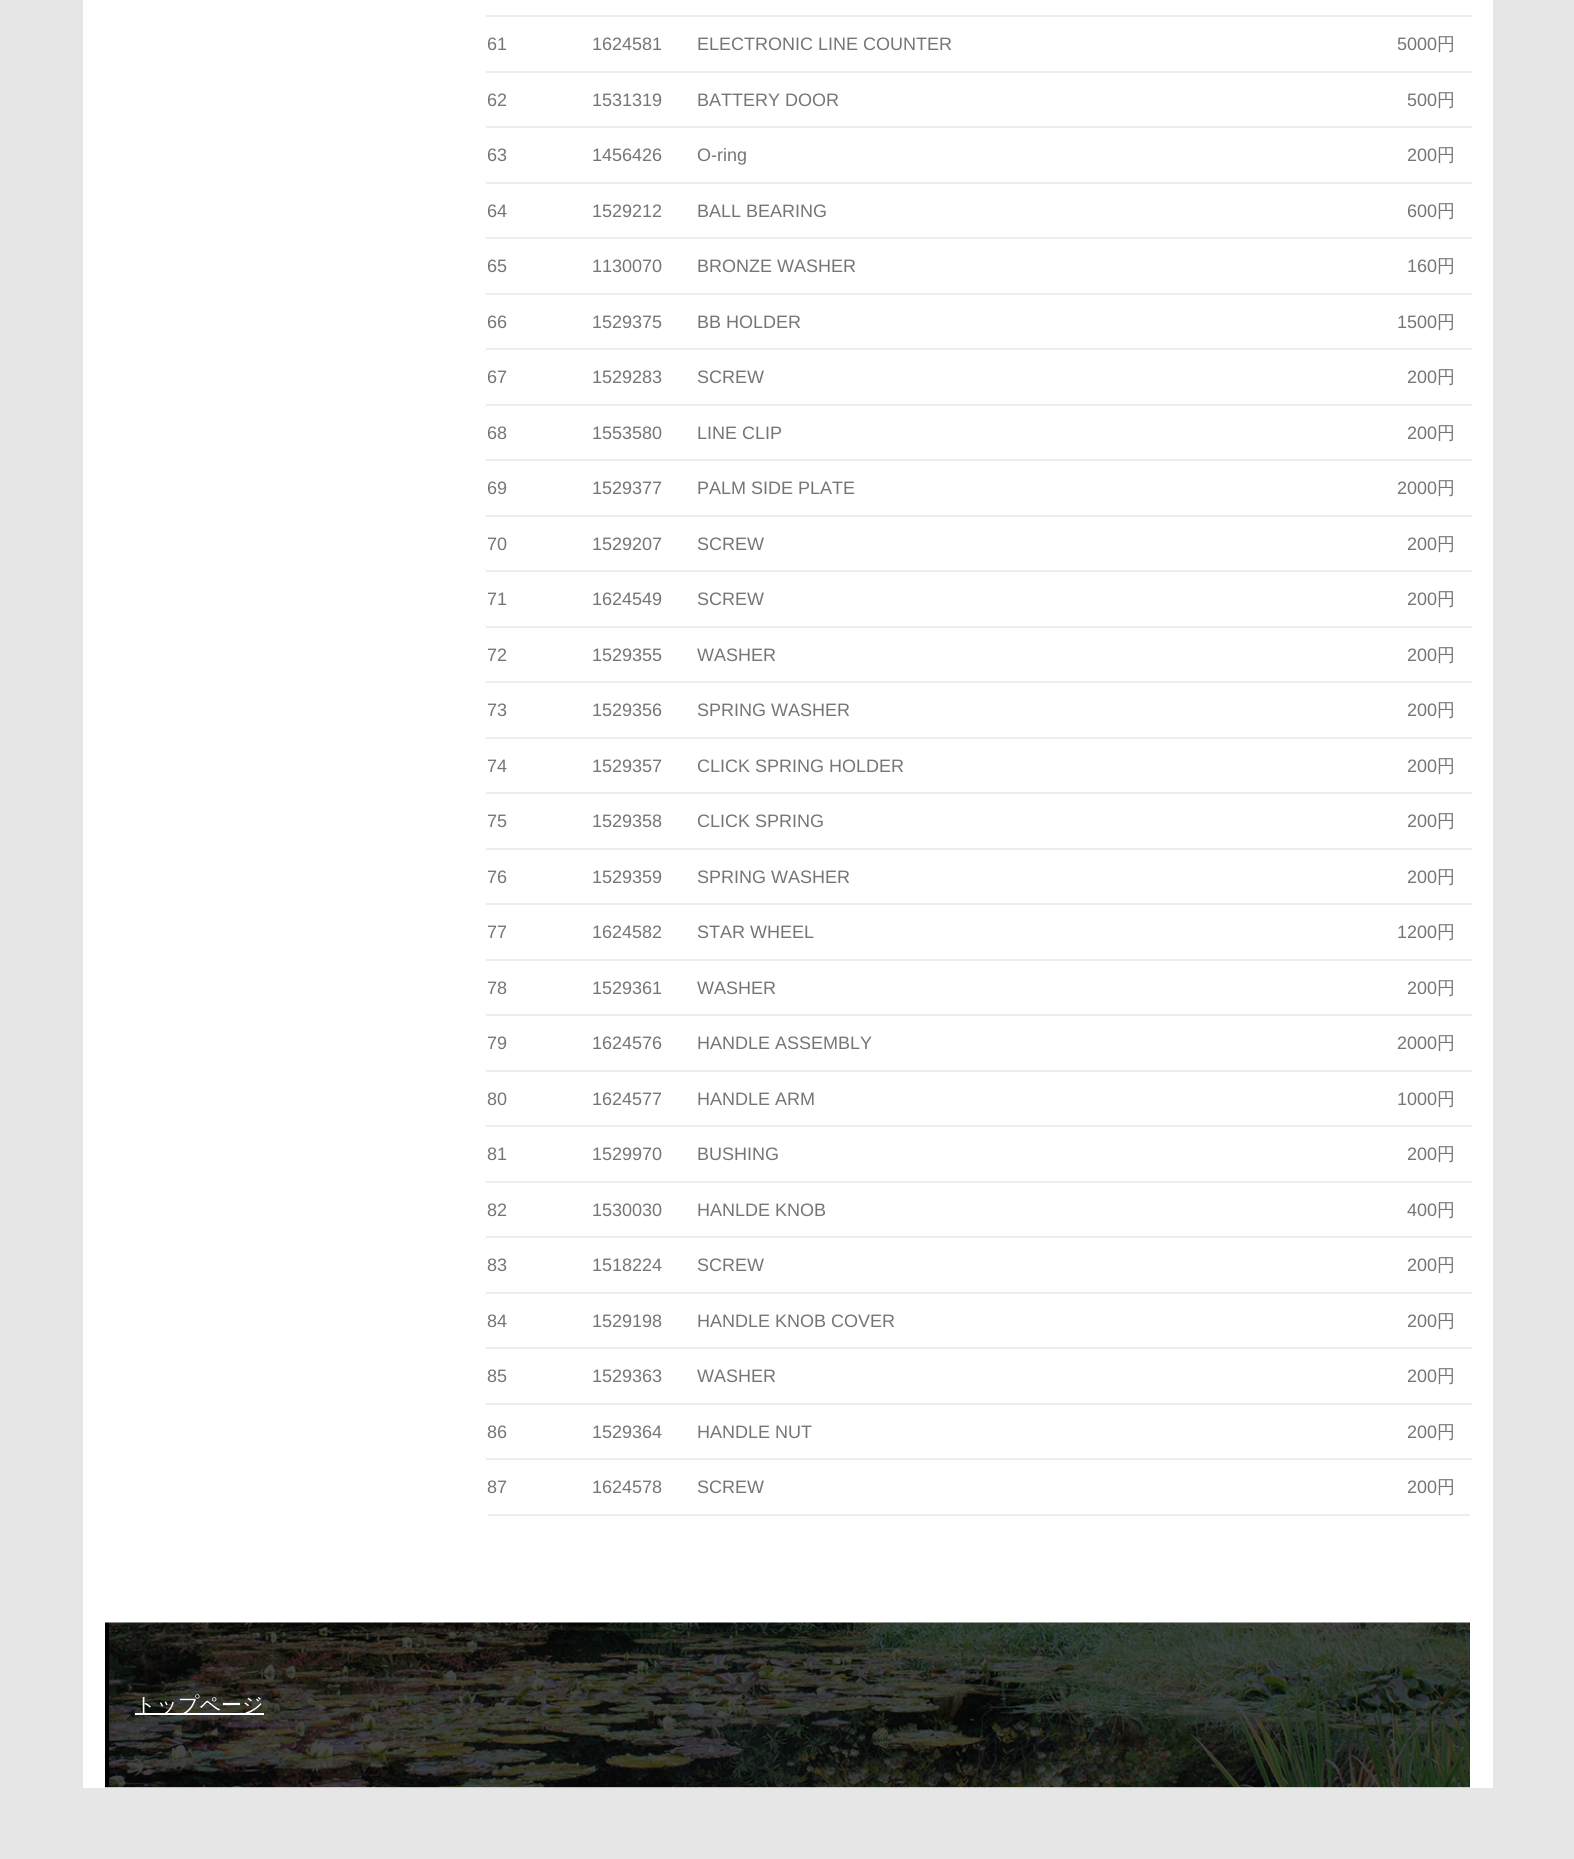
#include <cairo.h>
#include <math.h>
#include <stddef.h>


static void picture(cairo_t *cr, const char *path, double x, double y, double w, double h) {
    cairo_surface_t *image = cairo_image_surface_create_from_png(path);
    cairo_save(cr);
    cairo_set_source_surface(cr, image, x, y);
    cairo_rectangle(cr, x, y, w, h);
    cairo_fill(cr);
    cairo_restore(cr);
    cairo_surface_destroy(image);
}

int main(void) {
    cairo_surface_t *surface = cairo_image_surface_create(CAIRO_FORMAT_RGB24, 1574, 1859);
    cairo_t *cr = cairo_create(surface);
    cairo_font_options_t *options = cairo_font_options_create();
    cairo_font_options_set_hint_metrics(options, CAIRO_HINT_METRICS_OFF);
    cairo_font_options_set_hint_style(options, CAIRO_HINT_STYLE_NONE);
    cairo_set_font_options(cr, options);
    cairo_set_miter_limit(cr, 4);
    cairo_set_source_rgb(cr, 0.902, 0.902, 0.902);
    cairo_paint(cr);
    cairo_set_source_rgb(cr, 1, 1, 1);
    cairo_rectangle(cr, 83, 0, 1410, 1788);
    cairo_fill(cr);
    cairo_set_source_rgb(cr, 0.929, 0.929, 0.929);
    cairo_rectangle(cr, 488, 1514, 982, 2);
    cairo_fill(cr);
    cairo_select_font_face(cr, "Liberation Sans", CAIRO_FONT_SLANT_NORMAL, CAIRO_FONT_WEIGHT_NORMAL);
    cairo_set_font_size(cr, 18);
    cairo_set_source_rgb(cr, 0.459, 0.459, 0.459);
    cairo_move_to(cr, 487, 50);
    cairo_show_text(cr, "61");
    cairo_move_to(cr, 592, 50);
    cairo_show_text(cr, "1624581");
    cairo_move_to(cr, 697, 50);
    cairo_show_text(cr, "ELECTRONIC LINE COUNTER");
    cairo_set_source_rgb(cr, 0.929, 0.929, 0.929);
    cairo_rectangle(cr, 486, 15, 986, 2);
    cairo_fill(cr);
    cairo_set_source_rgb(cr, 0.459, 0.459, 0.459);
    cairo_move_to(cr, 1397, 50);
    cairo_show_text(cr, "5000");
    cairo_select_font_face(cr, "WenQuanYi Zen Hei Medium", CAIRO_FONT_SLANT_NORMAL, CAIRO_FONT_WEIGHT_NORMAL);
    cairo_move_to(cr, 1437, 50);
    cairo_show_text(cr, "円");
    cairo_select_font_face(cr, "Liberation Sans", CAIRO_FONT_SLANT_NORMAL, CAIRO_FONT_WEIGHT_NORMAL);
    cairo_move_to(cr, 487, 106);
    cairo_show_text(cr, "62");
    cairo_move_to(cr, 592, 106);
    cairo_show_text(cr, "1531319");
    cairo_move_to(cr, 697, 106);
    cairo_show_text(cr, "BATTERY DOOR");
    cairo_set_source_rgb(cr, 0.929, 0.929, 0.929);
    cairo_rectangle(cr, 486, 71, 986, 2);
    cairo_fill(cr);
    cairo_set_source_rgb(cr, 0.459, 0.459, 0.459);
    cairo_move_to(cr, 1407, 106);
    cairo_show_text(cr, "500");
    cairo_select_font_face(cr, "WenQuanYi Zen Hei Medium", CAIRO_FONT_SLANT_NORMAL, CAIRO_FONT_WEIGHT_NORMAL);
    cairo_move_to(cr, 1437, 106);
    cairo_show_text(cr, "円");
    cairo_select_font_face(cr, "Liberation Sans", CAIRO_FONT_SLANT_NORMAL, CAIRO_FONT_WEIGHT_NORMAL);
    cairo_move_to(cr, 487, 161);
    cairo_show_text(cr, "63");
    cairo_move_to(cr, 592, 161);
    cairo_show_text(cr, "1456426");
    cairo_move_to(cr, 697, 161);
    cairo_show_text(cr, "O-ring");
    cairo_set_source_rgb(cr, 0.929, 0.929, 0.929);
    cairo_rectangle(cr, 486, 126, 986, 2);
    cairo_fill(cr);
    cairo_set_source_rgb(cr, 0.459, 0.459, 0.459);
    cairo_move_to(cr, 1407, 161);
    cairo_show_text(cr, "200");
    cairo_select_font_face(cr, "WenQuanYi Zen Hei Medium", CAIRO_FONT_SLANT_NORMAL, CAIRO_FONT_WEIGHT_NORMAL);
    cairo_move_to(cr, 1437, 161);
    cairo_show_text(cr, "円");
    cairo_select_font_face(cr, "Liberation Sans", CAIRO_FONT_SLANT_NORMAL, CAIRO_FONT_WEIGHT_NORMAL);
    cairo_move_to(cr, 487, 217);
    cairo_show_text(cr, "64");
    cairo_move_to(cr, 592, 217);
    cairo_show_text(cr, "1529212");
    cairo_move_to(cr, 697, 217);
    cairo_show_text(cr, "BALL BEARING");
    cairo_set_source_rgb(cr, 0.929, 0.929, 0.929);
    cairo_rectangle(cr, 486, 182, 986, 2);
    cairo_fill(cr);
    cairo_set_source_rgb(cr, 0.459, 0.459, 0.459);
    cairo_move_to(cr, 1407, 217);
    cairo_show_text(cr, "600");
    cairo_select_font_face(cr, "WenQuanYi Zen Hei Medium", CAIRO_FONT_SLANT_NORMAL, CAIRO_FONT_WEIGHT_NORMAL);
    cairo_move_to(cr, 1437, 217);
    cairo_show_text(cr, "円");
    cairo_select_font_face(cr, "Liberation Sans", CAIRO_FONT_SLANT_NORMAL, CAIRO_FONT_WEIGHT_NORMAL);
    cairo_move_to(cr, 487, 272);
    cairo_show_text(cr, "65");
    cairo_move_to(cr, 592, 272);
    cairo_show_text(cr, "1130070");
    cairo_move_to(cr, 697, 272);
    cairo_show_text(cr, "BRONZE WASHER");
    cairo_set_source_rgb(cr, 0.929, 0.929, 0.929);
    cairo_rectangle(cr, 486, 237, 986, 2);
    cairo_fill(cr);
    cairo_set_source_rgb(cr, 0.459, 0.459, 0.459);
    cairo_move_to(cr, 1407, 272);
    cairo_show_text(cr, "160");
    cairo_select_font_face(cr, "WenQuanYi Zen Hei Medium", CAIRO_FONT_SLANT_NORMAL, CAIRO_FONT_WEIGHT_NORMAL);
    cairo_move_to(cr, 1437, 272);
    cairo_show_text(cr, "円");
    cairo_select_font_face(cr, "Liberation Sans", CAIRO_FONT_SLANT_NORMAL, CAIRO_FONT_WEIGHT_NORMAL);
    cairo_move_to(cr, 487, 328);
    cairo_show_text(cr, "66");
    cairo_move_to(cr, 592, 328);
    cairo_show_text(cr, "1529375");
    cairo_move_to(cr, 697, 328);
    cairo_show_text(cr, "BB HOLDER");
    cairo_set_source_rgb(cr, 0.929, 0.929, 0.929);
    cairo_rectangle(cr, 486, 293, 986, 2);
    cairo_fill(cr);
    cairo_set_source_rgb(cr, 0.459, 0.459, 0.459);
    cairo_move_to(cr, 1397, 328);
    cairo_show_text(cr, "1500");
    cairo_select_font_face(cr, "WenQuanYi Zen Hei Medium", CAIRO_FONT_SLANT_NORMAL, CAIRO_FONT_WEIGHT_NORMAL);
    cairo_move_to(cr, 1437, 328);
    cairo_show_text(cr, "円");
    cairo_select_font_face(cr, "Liberation Sans", CAIRO_FONT_SLANT_NORMAL, CAIRO_FONT_WEIGHT_NORMAL);
    cairo_move_to(cr, 487, 383);
    cairo_show_text(cr, "67");
    cairo_move_to(cr, 592, 383);
    cairo_show_text(cr, "1529283");
    cairo_move_to(cr, 697, 383);
    cairo_show_text(cr, "SCREW");
    cairo_set_source_rgb(cr, 0.929, 0.929, 0.929);
    cairo_rectangle(cr, 486, 348, 986, 2);
    cairo_fill(cr);
    cairo_set_source_rgb(cr, 0.459, 0.459, 0.459);
    cairo_move_to(cr, 1407, 383);
    cairo_show_text(cr, "200");
    cairo_select_font_face(cr, "WenQuanYi Zen Hei Medium", CAIRO_FONT_SLANT_NORMAL, CAIRO_FONT_WEIGHT_NORMAL);
    cairo_move_to(cr, 1437, 383);
    cairo_show_text(cr, "円");
    cairo_select_font_face(cr, "Liberation Sans", CAIRO_FONT_SLANT_NORMAL, CAIRO_FONT_WEIGHT_NORMAL);
    cairo_move_to(cr, 487, 439);
    cairo_show_text(cr, "68");
    cairo_move_to(cr, 592, 439);
    cairo_show_text(cr, "1553580");
    cairo_move_to(cr, 697, 439);
    cairo_show_text(cr, "LINE CLIP");
    cairo_set_source_rgb(cr, 0.929, 0.929, 0.929);
    cairo_rectangle(cr, 486, 404, 986, 2);
    cairo_fill(cr);
    cairo_set_source_rgb(cr, 0.459, 0.459, 0.459);
    cairo_move_to(cr, 1407, 439);
    cairo_show_text(cr, "200");
    cairo_select_font_face(cr, "WenQuanYi Zen Hei Medium", CAIRO_FONT_SLANT_NORMAL, CAIRO_FONT_WEIGHT_NORMAL);
    cairo_move_to(cr, 1437, 439);
    cairo_show_text(cr, "円");
    cairo_select_font_face(cr, "Liberation Sans", CAIRO_FONT_SLANT_NORMAL, CAIRO_FONT_WEIGHT_NORMAL);
    cairo_move_to(cr, 487, 494);
    cairo_show_text(cr, "69");
    cairo_move_to(cr, 592, 494);
    cairo_show_text(cr, "1529377");
    cairo_move_to(cr, 697, 494);
    cairo_show_text(cr, "PALM SIDE PLATE");
    cairo_set_source_rgb(cr, 0.929, 0.929, 0.929);
    cairo_rectangle(cr, 486, 459, 986, 2);
    cairo_fill(cr);
    cairo_set_source_rgb(cr, 0.459, 0.459, 0.459);
    cairo_move_to(cr, 1397, 494);
    cairo_show_text(cr, "2000");
    cairo_select_font_face(cr, "WenQuanYi Zen Hei Medium", CAIRO_FONT_SLANT_NORMAL, CAIRO_FONT_WEIGHT_NORMAL);
    cairo_move_to(cr, 1437, 494);
    cairo_show_text(cr, "円");
    cairo_select_font_face(cr, "Liberation Sans", CAIRO_FONT_SLANT_NORMAL, CAIRO_FONT_WEIGHT_NORMAL);
    cairo_move_to(cr, 487, 550);
    cairo_show_text(cr, "70");
    cairo_move_to(cr, 592, 550);
    cairo_show_text(cr, "1529207");
    cairo_move_to(cr, 697, 550);
    cairo_show_text(cr, "SCREW");
    cairo_set_source_rgb(cr, 0.929, 0.929, 0.929);
    cairo_rectangle(cr, 486, 515, 986, 2);
    cairo_fill(cr);
    cairo_set_source_rgb(cr, 0.459, 0.459, 0.459);
    cairo_move_to(cr, 1407, 550);
    cairo_show_text(cr, "200");
    cairo_select_font_face(cr, "WenQuanYi Zen Hei Medium", CAIRO_FONT_SLANT_NORMAL, CAIRO_FONT_WEIGHT_NORMAL);
    cairo_move_to(cr, 1437, 550);
    cairo_show_text(cr, "円");
    cairo_select_font_face(cr, "Liberation Sans", CAIRO_FONT_SLANT_NORMAL, CAIRO_FONT_WEIGHT_NORMAL);
    cairo_move_to(cr, 487, 605);
    cairo_show_text(cr, "71");
    cairo_move_to(cr, 592, 605);
    cairo_show_text(cr, "1624549");
    cairo_move_to(cr, 697, 605);
    cairo_show_text(cr, "SCREW");
    cairo_set_source_rgb(cr, 0.929, 0.929, 0.929);
    cairo_rectangle(cr, 486, 570, 986, 2);
    cairo_fill(cr);
    cairo_set_source_rgb(cr, 0.459, 0.459, 0.459);
    cairo_move_to(cr, 1407, 605);
    cairo_show_text(cr, "200");
    cairo_select_font_face(cr, "WenQuanYi Zen Hei Medium", CAIRO_FONT_SLANT_NORMAL, CAIRO_FONT_WEIGHT_NORMAL);
    cairo_move_to(cr, 1437, 605);
    cairo_show_text(cr, "円");
    cairo_select_font_face(cr, "Liberation Sans", CAIRO_FONT_SLANT_NORMAL, CAIRO_FONT_WEIGHT_NORMAL);
    cairo_move_to(cr, 487, 661);
    cairo_show_text(cr, "72");
    cairo_move_to(cr, 592, 661);
    cairo_show_text(cr, "1529355");
    cairo_move_to(cr, 697, 661);
    cairo_show_text(cr, "WASHER");
    cairo_set_source_rgb(cr, 0.929, 0.929, 0.929);
    cairo_rectangle(cr, 486, 626, 986, 2);
    cairo_fill(cr);
    cairo_set_source_rgb(cr, 0.459, 0.459, 0.459);
    cairo_move_to(cr, 1407, 661);
    cairo_show_text(cr, "200");
    cairo_select_font_face(cr, "WenQuanYi Zen Hei Medium", CAIRO_FONT_SLANT_NORMAL, CAIRO_FONT_WEIGHT_NORMAL);
    cairo_move_to(cr, 1437, 661);
    cairo_show_text(cr, "円");
    cairo_select_font_face(cr, "Liberation Sans", CAIRO_FONT_SLANT_NORMAL, CAIRO_FONT_WEIGHT_NORMAL);
    cairo_move_to(cr, 487, 716);
    cairo_show_text(cr, "73");
    cairo_move_to(cr, 592, 716);
    cairo_show_text(cr, "1529356");
    cairo_move_to(cr, 697, 716);
    cairo_show_text(cr, "SPRING WASHER");
    cairo_set_source_rgb(cr, 0.929, 0.929, 0.929);
    cairo_rectangle(cr, 486, 681, 986, 2);
    cairo_fill(cr);
    cairo_set_source_rgb(cr, 0.459, 0.459, 0.459);
    cairo_move_to(cr, 1407, 716);
    cairo_show_text(cr, "200");
    cairo_select_font_face(cr, "WenQuanYi Zen Hei Medium", CAIRO_FONT_SLANT_NORMAL, CAIRO_FONT_WEIGHT_NORMAL);
    cairo_move_to(cr, 1437, 716);
    cairo_show_text(cr, "円");
    cairo_select_font_face(cr, "Liberation Sans", CAIRO_FONT_SLANT_NORMAL, CAIRO_FONT_WEIGHT_NORMAL);
    cairo_move_to(cr, 487, 772);
    cairo_show_text(cr, "74");
    cairo_move_to(cr, 592, 772);
    cairo_show_text(cr, "1529357");
    cairo_move_to(cr, 697, 772);
    cairo_show_text(cr, "CLICK SPRING HOLDER");
    cairo_set_source_rgb(cr, 0.929, 0.929, 0.929);
    cairo_rectangle(cr, 486, 737, 986, 2);
    cairo_fill(cr);
    cairo_set_source_rgb(cr, 0.459, 0.459, 0.459);
    cairo_move_to(cr, 1407, 772);
    cairo_show_text(cr, "200");
    cairo_select_font_face(cr, "WenQuanYi Zen Hei Medium", CAIRO_FONT_SLANT_NORMAL, CAIRO_FONT_WEIGHT_NORMAL);
    cairo_move_to(cr, 1437, 772);
    cairo_show_text(cr, "円");
    cairo_select_font_face(cr, "Liberation Sans", CAIRO_FONT_SLANT_NORMAL, CAIRO_FONT_WEIGHT_NORMAL);
    cairo_move_to(cr, 487, 827);
    cairo_show_text(cr, "75");
    cairo_move_to(cr, 592, 827);
    cairo_show_text(cr, "1529358");
    cairo_move_to(cr, 697, 827);
    cairo_show_text(cr, "CLICK SPRING");
    cairo_set_source_rgb(cr, 0.929, 0.929, 0.929);
    cairo_rectangle(cr, 486, 792, 986, 2);
    cairo_fill(cr);
    cairo_set_source_rgb(cr, 0.459, 0.459, 0.459);
    cairo_move_to(cr, 1407, 827);
    cairo_show_text(cr, "200");
    cairo_select_font_face(cr, "WenQuanYi Zen Hei Medium", CAIRO_FONT_SLANT_NORMAL, CAIRO_FONT_WEIGHT_NORMAL);
    cairo_move_to(cr, 1437, 827);
    cairo_show_text(cr, "円");
    cairo_select_font_face(cr, "Liberation Sans", CAIRO_FONT_SLANT_NORMAL, CAIRO_FONT_WEIGHT_NORMAL);
    cairo_move_to(cr, 487, 883);
    cairo_show_text(cr, "76");
    cairo_move_to(cr, 592, 883);
    cairo_show_text(cr, "1529359");
    cairo_move_to(cr, 697, 883);
    cairo_show_text(cr, "SPRING WASHER");
    cairo_set_source_rgb(cr, 0.929, 0.929, 0.929);
    cairo_rectangle(cr, 486, 848, 986, 2);
    cairo_fill(cr);
    cairo_set_source_rgb(cr, 0.459, 0.459, 0.459);
    cairo_move_to(cr, 1407, 883);
    cairo_show_text(cr, "200");
    cairo_select_font_face(cr, "WenQuanYi Zen Hei Medium", CAIRO_FONT_SLANT_NORMAL, CAIRO_FONT_WEIGHT_NORMAL);
    cairo_move_to(cr, 1437, 883);
    cairo_show_text(cr, "円");
    cairo_select_font_face(cr, "Liberation Sans", CAIRO_FONT_SLANT_NORMAL, CAIRO_FONT_WEIGHT_NORMAL);
    cairo_move_to(cr, 487, 938);
    cairo_show_text(cr, "77");
    cairo_move_to(cr, 592, 938);
    cairo_show_text(cr, "1624582");
    cairo_move_to(cr, 697, 938);
    cairo_show_text(cr, "STAR WHEEL");
    cairo_set_source_rgb(cr, 0.929, 0.929, 0.929);
    cairo_rectangle(cr, 486, 903, 986, 2);
    cairo_fill(cr);
    cairo_set_source_rgb(cr, 0.459, 0.459, 0.459);
    cairo_move_to(cr, 1397, 938);
    cairo_show_text(cr, "1200");
    cairo_select_font_face(cr, "WenQuanYi Zen Hei Medium", CAIRO_FONT_SLANT_NORMAL, CAIRO_FONT_WEIGHT_NORMAL);
    cairo_move_to(cr, 1437, 938);
    cairo_show_text(cr, "円");
    cairo_select_font_face(cr, "Liberation Sans", CAIRO_FONT_SLANT_NORMAL, CAIRO_FONT_WEIGHT_NORMAL);
    cairo_move_to(cr, 487, 994);
    cairo_show_text(cr, "78");
    cairo_move_to(cr, 592, 994);
    cairo_show_text(cr, "1529361");
    cairo_move_to(cr, 697, 994);
    cairo_show_text(cr, "WASHER");
    cairo_set_source_rgb(cr, 0.929, 0.929, 0.929);
    cairo_rectangle(cr, 486, 959, 986, 2);
    cairo_fill(cr);
    cairo_set_source_rgb(cr, 0.459, 0.459, 0.459);
    cairo_move_to(cr, 1407, 994);
    cairo_show_text(cr, "200");
    cairo_select_font_face(cr, "WenQuanYi Zen Hei Medium", CAIRO_FONT_SLANT_NORMAL, CAIRO_FONT_WEIGHT_NORMAL);
    cairo_move_to(cr, 1437, 994);
    cairo_show_text(cr, "円");
    cairo_select_font_face(cr, "Liberation Sans", CAIRO_FONT_SLANT_NORMAL, CAIRO_FONT_WEIGHT_NORMAL);
    cairo_move_to(cr, 487, 1049);
    cairo_show_text(cr, "79");
    cairo_move_to(cr, 592, 1049);
    cairo_show_text(cr, "1624576");
    cairo_move_to(cr, 697, 1049);
    cairo_show_text(cr, "HANDLE ASSEMBLY");
    cairo_set_source_rgb(cr, 0.929, 0.929, 0.929);
    cairo_rectangle(cr, 486, 1014, 986, 2);
    cairo_fill(cr);
    cairo_set_source_rgb(cr, 0.459, 0.459, 0.459);
    cairo_move_to(cr, 1397, 1049);
    cairo_show_text(cr, "2000");
    cairo_select_font_face(cr, "WenQuanYi Zen Hei Medium", CAIRO_FONT_SLANT_NORMAL, CAIRO_FONT_WEIGHT_NORMAL);
    cairo_move_to(cr, 1437, 1049);
    cairo_show_text(cr, "円");
    cairo_select_font_face(cr, "Liberation Sans", CAIRO_FONT_SLANT_NORMAL, CAIRO_FONT_WEIGHT_NORMAL);
    cairo_move_to(cr, 487, 1105);
    cairo_show_text(cr, "80");
    cairo_move_to(cr, 592, 1105);
    cairo_show_text(cr, "1624577");
    cairo_move_to(cr, 697, 1105);
    cairo_show_text(cr, "HANDLE ARM");
    cairo_set_source_rgb(cr, 0.929, 0.929, 0.929);
    cairo_rectangle(cr, 486, 1070, 986, 2);
    cairo_fill(cr);
    cairo_set_source_rgb(cr, 0.459, 0.459, 0.459);
    cairo_move_to(cr, 1397, 1105);
    cairo_show_text(cr, "1000");
    cairo_select_font_face(cr, "WenQuanYi Zen Hei Medium", CAIRO_FONT_SLANT_NORMAL, CAIRO_FONT_WEIGHT_NORMAL);
    cairo_move_to(cr, 1437, 1105);
    cairo_show_text(cr, "円");
    cairo_select_font_face(cr, "Liberation Sans", CAIRO_FONT_SLANT_NORMAL, CAIRO_FONT_WEIGHT_NORMAL);
    cairo_move_to(cr, 487, 1160);
    cairo_show_text(cr, "81");
    cairo_move_to(cr, 592, 1160);
    cairo_show_text(cr, "1529970");
    cairo_move_to(cr, 697, 1160);
    cairo_show_text(cr, "BUSHING");
    cairo_set_source_rgb(cr, 0.929, 0.929, 0.929);
    cairo_rectangle(cr, 486, 1125, 986, 2);
    cairo_fill(cr);
    cairo_set_source_rgb(cr, 0.459, 0.459, 0.459);
    cairo_move_to(cr, 1407, 1160);
    cairo_show_text(cr, "200");
    cairo_select_font_face(cr, "WenQuanYi Zen Hei Medium", CAIRO_FONT_SLANT_NORMAL, CAIRO_FONT_WEIGHT_NORMAL);
    cairo_move_to(cr, 1437, 1160);
    cairo_show_text(cr, "円");
    cairo_select_font_face(cr, "Liberation Sans", CAIRO_FONT_SLANT_NORMAL, CAIRO_FONT_WEIGHT_NORMAL);
    cairo_move_to(cr, 487, 1216);
    cairo_show_text(cr, "82");
    cairo_move_to(cr, 592, 1216);
    cairo_show_text(cr, "1530030");
    cairo_move_to(cr, 697, 1216);
    cairo_show_text(cr, "HANLDE KNOB");
    cairo_set_source_rgb(cr, 0.929, 0.929, 0.929);
    cairo_rectangle(cr, 486, 1181, 986, 2);
    cairo_fill(cr);
    cairo_set_source_rgb(cr, 0.459, 0.459, 0.459);
    cairo_move_to(cr, 1407, 1216);
    cairo_show_text(cr, "400");
    cairo_select_font_face(cr, "WenQuanYi Zen Hei Medium", CAIRO_FONT_SLANT_NORMAL, CAIRO_FONT_WEIGHT_NORMAL);
    cairo_move_to(cr, 1437, 1216);
    cairo_show_text(cr, "円");
    cairo_select_font_face(cr, "Liberation Sans", CAIRO_FONT_SLANT_NORMAL, CAIRO_FONT_WEIGHT_NORMAL);
    cairo_move_to(cr, 487, 1271);
    cairo_show_text(cr, "83");
    cairo_move_to(cr, 592, 1271);
    cairo_show_text(cr, "1518224");
    cairo_move_to(cr, 697, 1271);
    cairo_show_text(cr, "SCREW");
    cairo_set_source_rgb(cr, 0.929, 0.929, 0.929);
    cairo_rectangle(cr, 486, 1236, 986, 2);
    cairo_fill(cr);
    cairo_set_source_rgb(cr, 0.459, 0.459, 0.459);
    cairo_move_to(cr, 1407, 1271);
    cairo_show_text(cr, "200");
    cairo_select_font_face(cr, "WenQuanYi Zen Hei Medium", CAIRO_FONT_SLANT_NORMAL, CAIRO_FONT_WEIGHT_NORMAL);
    cairo_move_to(cr, 1437, 1271);
    cairo_show_text(cr, "円");
    cairo_select_font_face(cr, "Liberation Sans", CAIRO_FONT_SLANT_NORMAL, CAIRO_FONT_WEIGHT_NORMAL);
    cairo_move_to(cr, 487, 1327);
    cairo_show_text(cr, "84");
    cairo_move_to(cr, 592, 1327);
    cairo_show_text(cr, "1529198");
    cairo_move_to(cr, 697, 1327);
    cairo_show_text(cr, "HANDLE KNOB COVER");
    cairo_set_source_rgb(cr, 0.929, 0.929, 0.929);
    cairo_rectangle(cr, 486, 1292, 986, 2);
    cairo_fill(cr);
    cairo_set_source_rgb(cr, 0.459, 0.459, 0.459);
    cairo_move_to(cr, 1407, 1327);
    cairo_show_text(cr, "200");
    cairo_select_font_face(cr, "WenQuanYi Zen Hei Medium", CAIRO_FONT_SLANT_NORMAL, CAIRO_FONT_WEIGHT_NORMAL);
    cairo_move_to(cr, 1437, 1327);
    cairo_show_text(cr, "円");
    cairo_select_font_face(cr, "Liberation Sans", CAIRO_FONT_SLANT_NORMAL, CAIRO_FONT_WEIGHT_NORMAL);
    cairo_move_to(cr, 487, 1382);
    cairo_show_text(cr, "85");
    cairo_move_to(cr, 592, 1382);
    cairo_show_text(cr, "1529363");
    cairo_move_to(cr, 697, 1382);
    cairo_show_text(cr, "WASHER");
    cairo_set_source_rgb(cr, 0.929, 0.929, 0.929);
    cairo_rectangle(cr, 486, 1347, 986, 2);
    cairo_fill(cr);
    cairo_set_source_rgb(cr, 0.459, 0.459, 0.459);
    cairo_move_to(cr, 1407, 1382);
    cairo_show_text(cr, "200");
    cairo_select_font_face(cr, "WenQuanYi Zen Hei Medium", CAIRO_FONT_SLANT_NORMAL, CAIRO_FONT_WEIGHT_NORMAL);
    cairo_move_to(cr, 1437, 1382);
    cairo_show_text(cr, "円");
    cairo_select_font_face(cr, "Liberation Sans", CAIRO_FONT_SLANT_NORMAL, CAIRO_FONT_WEIGHT_NORMAL);
    cairo_move_to(cr, 487, 1438);
    cairo_show_text(cr, "86");
    cairo_move_to(cr, 592, 1438);
    cairo_show_text(cr, "1529364");
    cairo_move_to(cr, 697, 1438);
    cairo_show_text(cr, "HANDLE NUT");
    cairo_set_source_rgb(cr, 0.929, 0.929, 0.929);
    cairo_rectangle(cr, 486, 1403, 986, 2);
    cairo_fill(cr);
    cairo_set_source_rgb(cr, 0.459, 0.459, 0.459);
    cairo_move_to(cr, 1407, 1438);
    cairo_show_text(cr, "200");
    cairo_select_font_face(cr, "WenQuanYi Zen Hei Medium", CAIRO_FONT_SLANT_NORMAL, CAIRO_FONT_WEIGHT_NORMAL);
    cairo_move_to(cr, 1437, 1438);
    cairo_show_text(cr, "円");
    cairo_select_font_face(cr, "Liberation Sans", CAIRO_FONT_SLANT_NORMAL, CAIRO_FONT_WEIGHT_NORMAL);
    cairo_move_to(cr, 487, 1493);
    cairo_show_text(cr, "87");
    cairo_move_to(cr, 592, 1493);
    cairo_show_text(cr, "1624578");
    cairo_move_to(cr, 697, 1493);
    cairo_show_text(cr, "SCREW");
    cairo_set_source_rgb(cr, 0.929, 0.929, 0.929);
    cairo_rectangle(cr, 486, 1458, 986, 2);
    cairo_fill(cr);
    cairo_set_source_rgb(cr, 0.459, 0.459, 0.459);
    cairo_move_to(cr, 1407, 1493);
    cairo_show_text(cr, "200");
    cairo_select_font_face(cr, "WenQuanYi Zen Hei Medium", CAIRO_FONT_SLANT_NORMAL, CAIRO_FONT_WEIGHT_NORMAL);
    cairo_move_to(cr, 1437, 1493);
    cairo_show_text(cr, "円");
    picture(cr, "img1.png", 105, 1622, 1365, 166);
    cairo_set_source_rgb(cr, 1, 1, 1);
    cairo_rectangle(cr, 135, 1713, 129, 2);
    cairo_fill(cr);
    cairo_set_font_size(cr, 21);
    cairo_move_to(cr, 135, 1712);
    cairo_show_text(cr, "トップページ");
    cairo_surface_write_to_png(surface, "page.png");
    cairo_font_options_destroy(options);
    cairo_destroy(cr);
    cairo_surface_destroy(surface);
    return 0;
}
